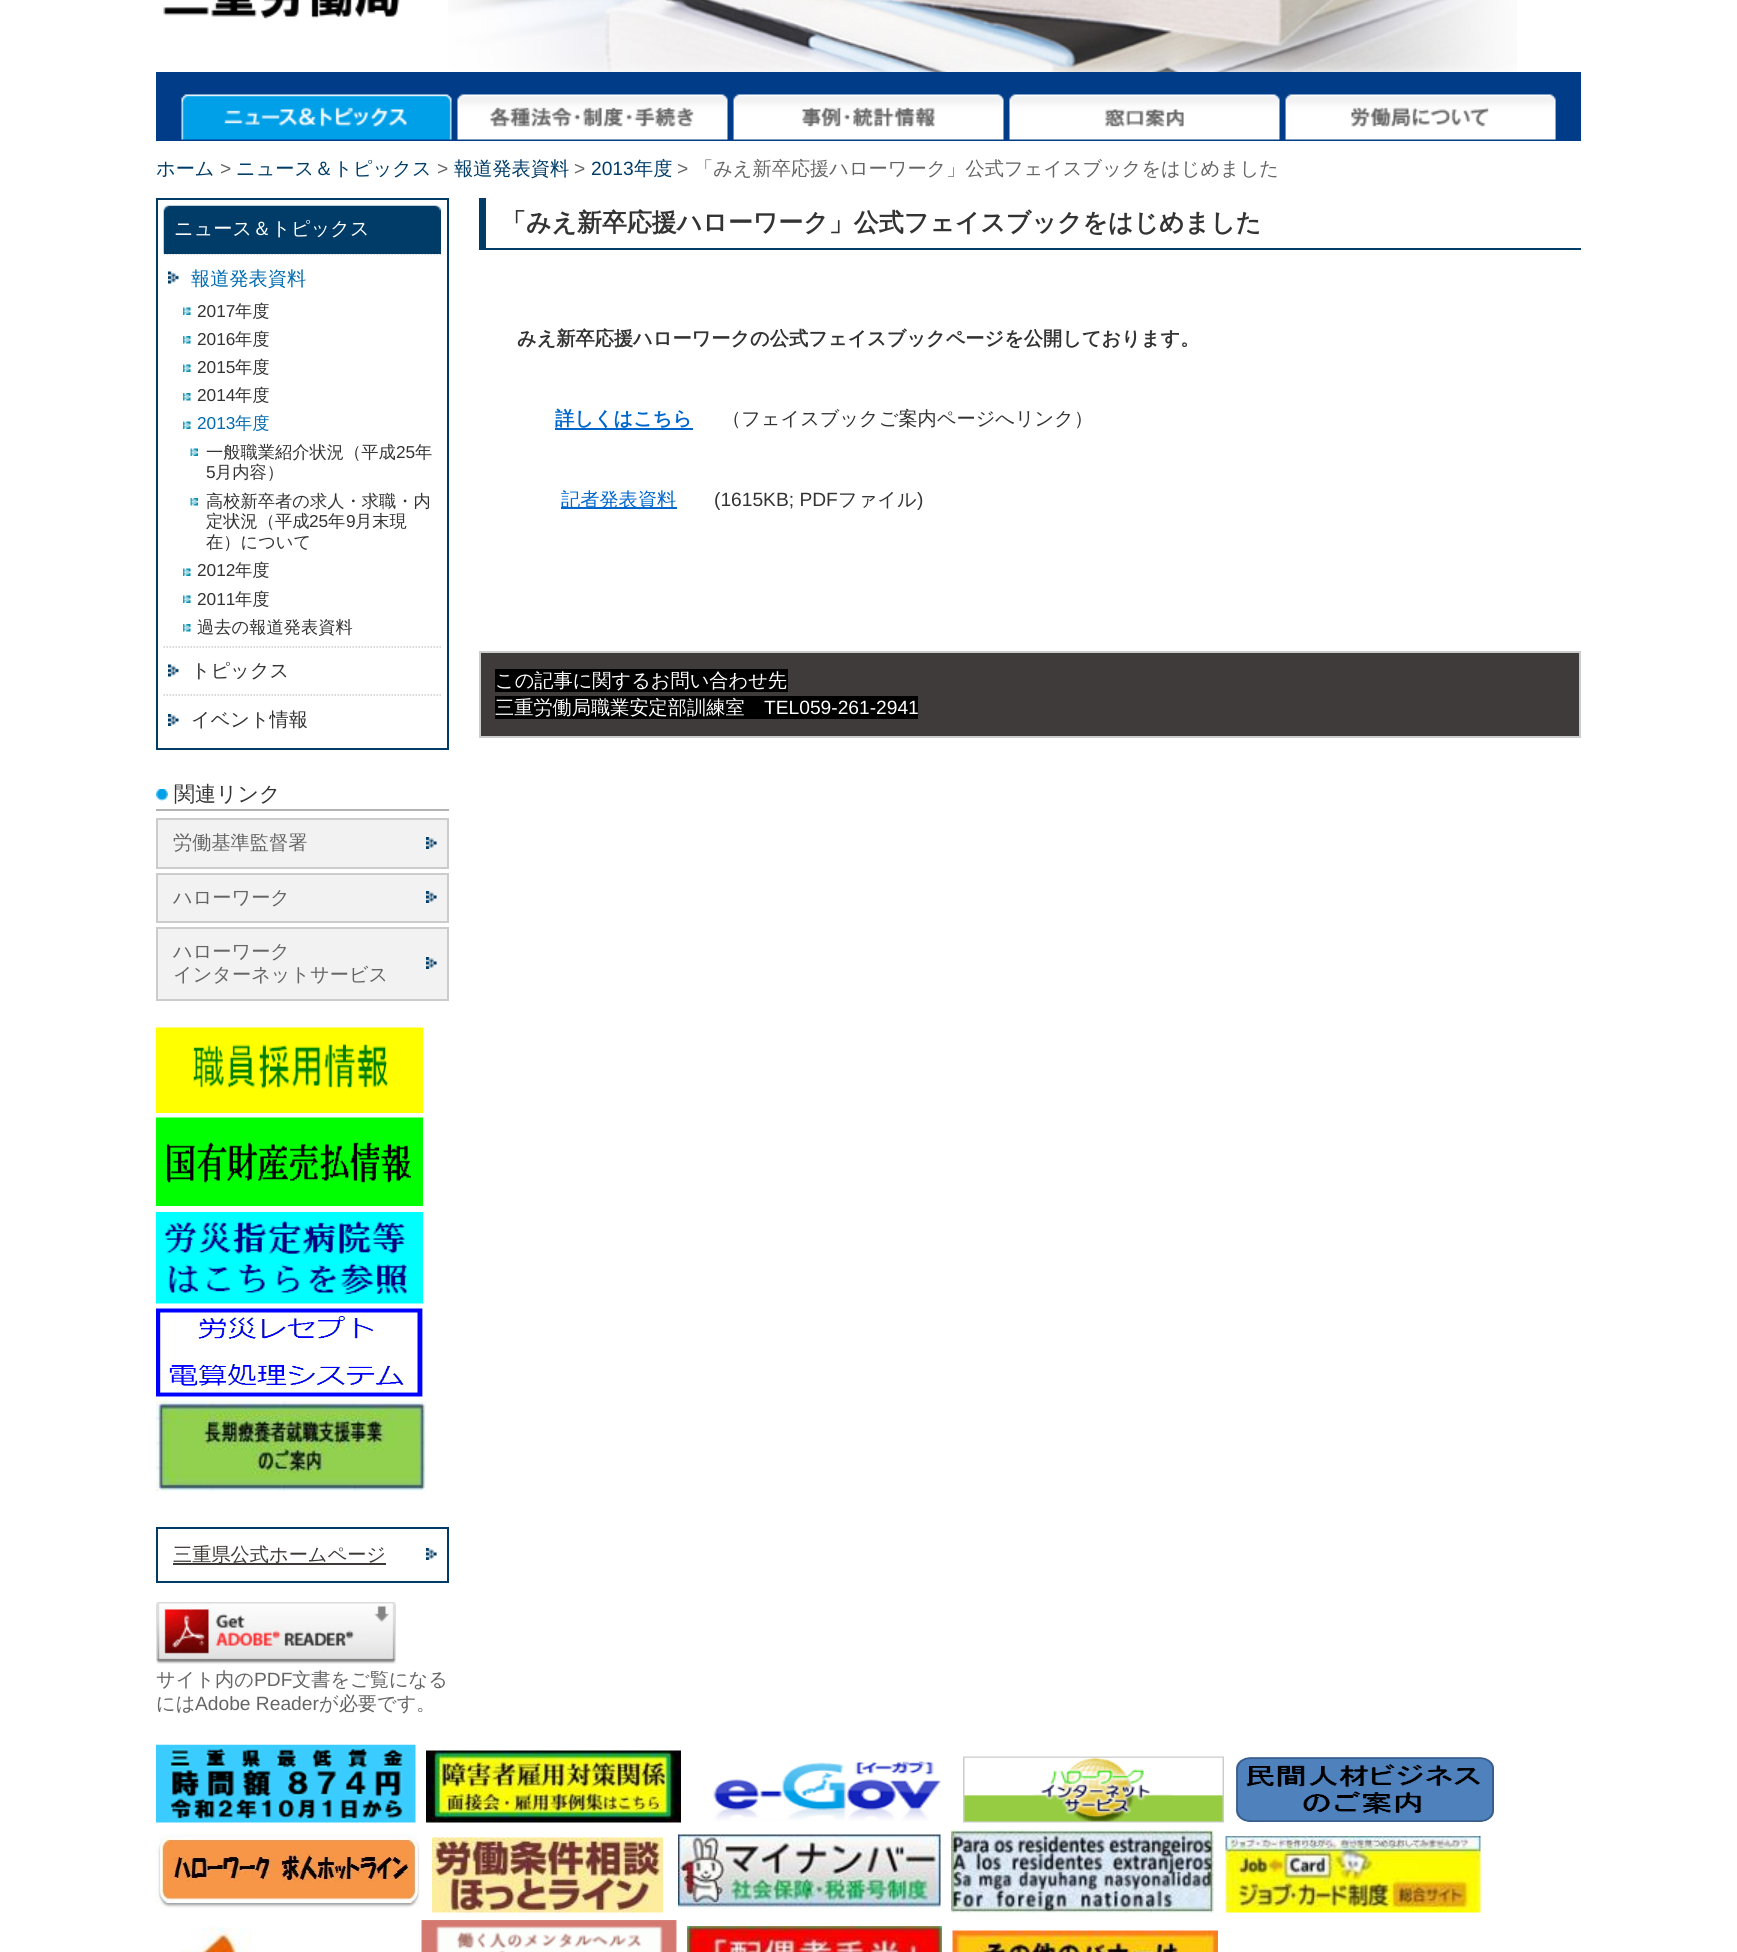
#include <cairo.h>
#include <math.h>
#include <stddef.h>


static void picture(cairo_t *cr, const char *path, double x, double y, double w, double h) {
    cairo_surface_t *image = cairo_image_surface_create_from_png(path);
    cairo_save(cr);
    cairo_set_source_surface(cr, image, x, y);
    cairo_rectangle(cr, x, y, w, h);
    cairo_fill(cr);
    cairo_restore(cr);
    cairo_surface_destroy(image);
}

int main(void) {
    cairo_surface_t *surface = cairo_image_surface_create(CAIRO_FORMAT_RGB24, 1737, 1952);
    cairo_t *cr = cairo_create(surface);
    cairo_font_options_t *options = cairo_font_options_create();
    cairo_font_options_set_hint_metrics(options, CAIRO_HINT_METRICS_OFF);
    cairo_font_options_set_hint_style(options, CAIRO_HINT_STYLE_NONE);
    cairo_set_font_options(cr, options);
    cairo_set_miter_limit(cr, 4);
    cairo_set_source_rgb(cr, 1, 1, 1);
    cairo_paint(cr);
    picture(cr, "img1.png", 448, 0, 1069, 72);
    picture(cr, "img2.png", 163, 0, 237, 19);
    cairo_set_source_rgb(cr, 0, 0.235, 0.529);
    cairo_rectangle(cr, 156, 72, 1425, 69);
    cairo_fill(cr);
    picture(cr, "img3.png", 181, 94, 271, 46);
    picture(cr, "img4.png", 457, 94, 271, 46);
    picture(cr, "img5.png", 733, 94, 271, 46);
    picture(cr, "img6.png", 1009, 94, 271, 46);
    picture(cr, "img7.png", 1285, 94, 271, 46);
    cairo_select_font_face(cr, "WenQuanYi Zen Hei Medium", CAIRO_FONT_SLANT_NORMAL, CAIRO_FONT_WEIGHT_NORMAL);
    cairo_set_font_size(cr, 19.2);
    cairo_set_source_rgb(cr, 0, 0.235, 0.404);
    cairo_move_to(cr, 156, 175);
    cairo_show_text(cr, "ホーム");
    cairo_select_font_face(cr, "Liberation Sans", CAIRO_FONT_SLANT_NORMAL, CAIRO_FONT_WEIGHT_NORMAL);
    cairo_set_source_rgb(cr, 0.4, 0.396, 0.396);
    cairo_move_to(cr, 220, 175);
    cairo_show_text(cr, ">");
    cairo_select_font_face(cr, "WenQuanYi Zen Hei Medium", CAIRO_FONT_SLANT_NORMAL, CAIRO_FONT_WEIGHT_NORMAL);
    cairo_set_source_rgb(cr, 0, 0.235, 0.404);
    cairo_move_to(cr, 236, 175);
    cairo_show_text(cr, "ニュース＆トピックス");
    cairo_select_font_face(cr, "Liberation Sans", CAIRO_FONT_SLANT_NORMAL, CAIRO_FONT_WEIGHT_NORMAL);
    cairo_set_source_rgb(cr, 0.4, 0.396, 0.396);
    cairo_move_to(cr, 437, 175);
    cairo_show_text(cr, ">");
    cairo_select_font_face(cr, "WenQuanYi Zen Hei Medium", CAIRO_FONT_SLANT_NORMAL, CAIRO_FONT_WEIGHT_NORMAL);
    cairo_set_source_rgb(cr, 0, 0.235, 0.404);
    cairo_move_to(cr, 454, 175);
    cairo_show_text(cr, "報道発表資料");
    cairo_select_font_face(cr, "Liberation Sans", CAIRO_FONT_SLANT_NORMAL, CAIRO_FONT_WEIGHT_NORMAL);
    cairo_set_source_rgb(cr, 0.4, 0.396, 0.396);
    cairo_move_to(cr, 574, 175);
    cairo_show_text(cr, ">");
    cairo_set_source_rgb(cr, 0, 0.235, 0.404);
    cairo_move_to(cr, 591, 175);
    cairo_show_text(cr, "2013");
    cairo_select_font_face(cr, "WenQuanYi Zen Hei Medium", CAIRO_FONT_SLANT_NORMAL, CAIRO_FONT_WEIGHT_NORMAL);
    cairo_move_to(cr, 634, 175);
    cairo_show_text(cr, "年度");
    cairo_select_font_face(cr, "Liberation Sans", CAIRO_FONT_SLANT_NORMAL, CAIRO_FONT_WEIGHT_NORMAL);
    cairo_set_source_rgb(cr, 0.4, 0.396, 0.396);
    cairo_move_to(cr, 677, 175);
    cairo_show_text(cr, ">");
    cairo_select_font_face(cr, "WenQuanYi Zen Hei Medium", CAIRO_FONT_SLANT_NORMAL, CAIRO_FONT_WEIGHT_NORMAL);
    cairo_move_to(cr, 694, 175);
    cairo_show_text(cr, "「みえ新卒応援ハローワーク」公式フェイスブックをはじめました");
    cairo_rectangle(cr, 157, 199, 291, 550);
    cairo_set_source_rgb(cr, 0, 0.235, 0.404);
    cairo_stroke(cr);
    cairo_rectangle(cr, 164, 253, 277, 1);
    cairo_fill(cr);
    picture(cr, "img8.png", 163, 205, 278, 49);
    cairo_set_source_rgb(cr, 1, 1, 1);
    cairo_move_to(cr, 174, 235);
    cairo_show_text(cr, "ニュース＆トピックス");
    picture(cr, "img9.png", 168, 271, 11, 13);
    cairo_save(cr);
    cairo_rectangle(cr, 164, 254, 277, 489);
    cairo_clip(cr);
    cairo_new_path(cr);
    cairo_move_to(cr, 163.5, 254);
    cairo_line_to(cr, 441, 254);
    cairo_set_source_rgb(cr, 0.8, 0.8, 0.8);
    cairo_set_line_width(cr, 1.5);
    cairo_set_dash(cr, (double[]){1.5, 1.5}, 2, 0);
    cairo_stroke(cr);
    cairo_restore(cr);
    cairo_set_source_rgb(cr, 0, 0.42, 0.686);
    cairo_move_to(cr, 191, 285);
    cairo_show_text(cr, "報道発表資料");
    picture(cr, "img10.png", 183, 307, 8, 8);
    cairo_select_font_face(cr, "Liberation Sans", CAIRO_FONT_SLANT_NORMAL, CAIRO_FONT_WEIGHT_NORMAL);
    cairo_set_font_size(cr, 17.25);
    cairo_set_source_rgb(cr, 0.2, 0.2, 0.2);
    cairo_move_to(cr, 197, 317);
    cairo_show_text(cr, "2017");
    cairo_select_font_face(cr, "WenQuanYi Zen Hei Medium", CAIRO_FONT_SLANT_NORMAL, CAIRO_FONT_WEIGHT_NORMAL);
    cairo_move_to(cr, 235, 317);
    cairo_show_text(cr, "年度");
    picture(cr, "img11.png", 183, 336, 8, 8);
    cairo_select_font_face(cr, "Liberation Sans", CAIRO_FONT_SLANT_NORMAL, CAIRO_FONT_WEIGHT_NORMAL);
    cairo_move_to(cr, 197, 345);
    cairo_show_text(cr, "2016");
    cairo_select_font_face(cr, "WenQuanYi Zen Hei Medium", CAIRO_FONT_SLANT_NORMAL, CAIRO_FONT_WEIGHT_NORMAL);
    cairo_move_to(cr, 235, 345);
    cairo_show_text(cr, "年度");
    picture(cr, "img10.png", 183, 364, 8, 8);
    cairo_select_font_face(cr, "Liberation Sans", CAIRO_FONT_SLANT_NORMAL, CAIRO_FONT_WEIGHT_NORMAL);
    cairo_move_to(cr, 197, 373);
    cairo_show_text(cr, "2015");
    cairo_select_font_face(cr, "WenQuanYi Zen Hei Medium", CAIRO_FONT_SLANT_NORMAL, CAIRO_FONT_WEIGHT_NORMAL);
    cairo_move_to(cr, 235, 373);
    cairo_show_text(cr, "年度");
    picture(cr, "img11.png", 183, 393, 8, 8);
    cairo_select_font_face(cr, "Liberation Sans", CAIRO_FONT_SLANT_NORMAL, CAIRO_FONT_WEIGHT_NORMAL);
    cairo_move_to(cr, 197, 401);
    cairo_show_text(cr, "2014");
    cairo_select_font_face(cr, "WenQuanYi Zen Hei Medium", CAIRO_FONT_SLANT_NORMAL, CAIRO_FONT_WEIGHT_NORMAL);
    cairo_move_to(cr, 235, 401);
    cairo_show_text(cr, "年度");
    picture(cr, "img10.png", 183, 421, 8, 8);
    cairo_select_font_face(cr, "Liberation Sans", CAIRO_FONT_SLANT_NORMAL, CAIRO_FONT_WEIGHT_NORMAL);
    cairo_set_source_rgb(cr, 0, 0.42, 0.686);
    cairo_move_to(cr, 197, 429);
    cairo_show_text(cr, "2013");
    cairo_select_font_face(cr, "WenQuanYi Zen Hei Medium", CAIRO_FONT_SLANT_NORMAL, CAIRO_FONT_WEIGHT_NORMAL);
    cairo_move_to(cr, 235, 429);
    cairo_show_text(cr, "年度");
    picture(cr, "img12.png", 190, 448, 8, 8);
    cairo_set_source_rgb(cr, 0.2, 0.2, 0.2);
    cairo_move_to(cr, 206, 458);
    cairo_show_text(cr, "一般職業紹介状況（平成");
    cairo_select_font_face(cr, "Liberation Sans", CAIRO_FONT_SLANT_NORMAL, CAIRO_FONT_WEIGHT_NORMAL);
    cairo_move_to(cr, 396, 458);
    cairo_show_text(cr, "25");
    cairo_select_font_face(cr, "WenQuanYi Zen Hei Medium", CAIRO_FONT_SLANT_NORMAL, CAIRO_FONT_WEIGHT_NORMAL);
    cairo_move_to(cr, 415, 458);
    cairo_show_text(cr, "年");
    cairo_select_font_face(cr, "Liberation Sans", CAIRO_FONT_SLANT_NORMAL, CAIRO_FONT_WEIGHT_NORMAL);
    cairo_move_to(cr, 206, 478);
    cairo_show_text(cr, "5");
    cairo_select_font_face(cr, "WenQuanYi Zen Hei Medium", CAIRO_FONT_SLANT_NORMAL, CAIRO_FONT_WEIGHT_NORMAL);
    cairo_move_to(cr, 215, 478);
    cairo_show_text(cr, "月内容）");
    picture(cr, "img13.png", 190, 498, 8, 8);
    cairo_move_to(cr, 206, 507);
    cairo_show_text(cr, "高校新卒者の求人・求職・内");
    cairo_move_to(cr, 206, 527);
    cairo_show_text(cr, "定状況（平成");
    cairo_select_font_face(cr, "Liberation Sans", CAIRO_FONT_SLANT_NORMAL, CAIRO_FONT_WEIGHT_NORMAL);
    cairo_move_to(cr, 309, 527);
    cairo_show_text(cr, "25");
    cairo_select_font_face(cr, "WenQuanYi Zen Hei Medium", CAIRO_FONT_SLANT_NORMAL, CAIRO_FONT_WEIGHT_NORMAL);
    cairo_move_to(cr, 328, 527);
    cairo_show_text(cr, "年");
    cairo_select_font_face(cr, "Liberation Sans", CAIRO_FONT_SLANT_NORMAL, CAIRO_FONT_WEIGHT_NORMAL);
    cairo_move_to(cr, 346, 527);
    cairo_show_text(cr, "9");
    cairo_select_font_face(cr, "WenQuanYi Zen Hei Medium", CAIRO_FONT_SLANT_NORMAL, CAIRO_FONT_WEIGHT_NORMAL);
    cairo_move_to(cr, 355, 527);
    cairo_show_text(cr, "月末現");
    cairo_move_to(cr, 206, 548);
    cairo_show_text(cr, "在）について");
    picture(cr, "img10.png", 183, 568, 8, 8);
    cairo_select_font_face(cr, "Liberation Sans", CAIRO_FONT_SLANT_NORMAL, CAIRO_FONT_WEIGHT_NORMAL);
    cairo_move_to(cr, 197, 576);
    cairo_show_text(cr, "2012");
    cairo_select_font_face(cr, "WenQuanYi Zen Hei Medium", CAIRO_FONT_SLANT_NORMAL, CAIRO_FONT_WEIGHT_NORMAL);
    cairo_move_to(cr, 235, 576);
    cairo_show_text(cr, "年度");
    picture(cr, "img10.png", 183, 595, 8, 8);
    cairo_select_font_face(cr, "Liberation Sans", CAIRO_FONT_SLANT_NORMAL, CAIRO_FONT_WEIGHT_NORMAL);
    cairo_move_to(cr, 197, 605);
    cairo_show_text(cr, "2011");
    cairo_select_font_face(cr, "WenQuanYi Zen Hei Medium", CAIRO_FONT_SLANT_NORMAL, CAIRO_FONT_WEIGHT_NORMAL);
    cairo_move_to(cr, 235, 605);
    cairo_show_text(cr, "年度");
    picture(cr, "img11.png", 183, 624, 8, 8);
    cairo_move_to(cr, 197, 633);
    cairo_show_text(cr, "過去の報道発表資料");
    picture(cr, "img9.png", 168, 664, 11, 13);
    cairo_new_path(cr);
    cairo_move_to(cr, 163.5, 647);
    cairo_line_to(cr, 441, 647);
    cairo_set_source_rgb(cr, 0.8, 0.8, 0.8);
    cairo_set_line_width(cr, 1.5);
    cairo_set_dash(cr, (double[]){1.5, 1.5}, 2, 0);
    cairo_stroke(cr);
    cairo_set_font_size(cr, 19.2);
    cairo_set_source_rgb(cr, 0.2, 0.2, 0.2);
    cairo_move_to(cr, 191, 677);
    cairo_show_text(cr, "トピックス");
    picture(cr, "img14.png", 168, 714, 11, 12);
    cairo_new_path(cr);
    cairo_move_to(cr, 163.5, 695);
    cairo_line_to(cr, 441, 695);
    cairo_set_source_rgb(cr, 0.8, 0.8, 0.8);
    cairo_stroke(cr);
    cairo_set_source_rgb(cr, 0.2, 0.2, 0.2);
    cairo_move_to(cr, 191, 726);
    cairo_show_text(cr, "イベント情報");
    picture(cr, "img15.png", 156, 789, 12, 12);
    cairo_set_source_rgb(cr, 0.702, 0.702, 0.702);
    cairo_rectangle(cr, 156, 809, 293, 2);
    cairo_fill(cr);
    cairo_set_font_size(cr, 21);
    cairo_set_source_rgb(cr, 0.2, 0.2, 0.2);
    cairo_move_to(cr, 174, 801);
    cairo_show_text(cr, "関連リンク");
    cairo_set_source_rgb(cr, 0.949, 0.949, 0.949);
    cairo_rectangle(cr, 158, 820, 289, 47);
    cairo_fill(cr);
    picture(cr, "img16.png", 426, 837, 11, 12);
    cairo_rectangle(cr, 157, 819, 291, 49);
    cairo_set_source_rgb(cr, 0.8, 0.8, 0.8);
    cairo_set_line_width(cr, 2);
    cairo_set_dash(cr, NULL, 0, 0);
    cairo_stroke(cr);
    cairo_set_font_size(cr, 19.2);
    cairo_set_source_rgb(cr, 0.4, 0.396, 0.396);
    cairo_move_to(cr, 173, 849);
    cairo_show_text(cr, "労働基準監督署");
    cairo_set_source_rgb(cr, 0.949, 0.949, 0.949);
    cairo_rectangle(cr, 158, 875, 289, 46);
    cairo_fill(cr);
    picture(cr, "img16.png", 426, 891, 11, 12);
    cairo_rectangle(cr, 157, 874, 291, 48);
    cairo_set_source_rgb(cr, 0.8, 0.8, 0.8);
    cairo_stroke(cr);
    cairo_set_source_rgb(cr, 0.4, 0.396, 0.396);
    cairo_move_to(cr, 173, 904);
    cairo_show_text(cr, "ハローワーク");
    cairo_set_source_rgb(cr, 0.949, 0.949, 0.949);
    cairo_rectangle(cr, 158, 929, 289, 70);
    cairo_fill(cr);
    picture(cr, "img16.png", 426, 957, 11, 12);
    cairo_rectangle(cr, 157, 928, 291, 72);
    cairo_set_source_rgb(cr, 0.8, 0.8, 0.8);
    cairo_stroke(cr);
    cairo_set_source_rgb(cr, 0.4, 0.396, 0.396);
    cairo_move_to(cr, 173, 958);
    cairo_show_text(cr, "ハローワーク");
    cairo_move_to(cr, 173, 981);
    cairo_show_text(cr, "インターネットサービス");
    picture(cr, "img17.png", 156, 1027, 267, 86);
    picture(cr, "img18.png", 156, 1117, 267, 89);
    picture(cr, "img19.png", 156, 1212, 267, 92);
    picture(cr, "img20.png", 156, 1308, 267, 89);
    picture(cr, "img21.png", 156, 1401, 270, 90);
    picture(cr, "img22.png", 426, 1548, 11, 12);
    cairo_rectangle(cr, 157, 1528, 291, 54);
    cairo_set_source_rgb(cr, 0, 0.235, 0.404);
    cairo_stroke(cr);
    cairo_set_source_rgb(cr, 0.247, 0.231, 0.227);
    cairo_rectangle(cr, 173, 1563, 213, 2);
    cairo_fill(cr);
    cairo_move_to(cr, 173, 1561);
    cairo_show_text(cr, "三重県公式ホームページ");
    picture(cr, "img23.png", 156, 1602, 240, 62);
    cairo_set_source_rgb(cr, 0.4, 0.396, 0.396);
    cairo_move_to(cr, 156, 1686);
    cairo_show_text(cr, "サイト内の");
    cairo_select_font_face(cr, "Liberation Sans", CAIRO_FONT_SLANT_NORMAL, CAIRO_FONT_WEIGHT_NORMAL);
    cairo_move_to(cr, 254, 1686);
    cairo_show_text(cr, "PDF");
    cairo_select_font_face(cr, "WenQuanYi Zen Hei Medium", CAIRO_FONT_SLANT_NORMAL, CAIRO_FONT_WEIGHT_NORMAL);
    cairo_move_to(cr, 292, 1686);
    cairo_show_text(cr, "文書をご覧になる");
    cairo_move_to(cr, 156, 1710);
    cairo_show_text(cr, "には");
    cairo_select_font_face(cr, "Liberation Sans", CAIRO_FONT_SLANT_NORMAL, CAIRO_FONT_WEIGHT_NORMAL);
    cairo_move_to(cr, 195, 1710);
    cairo_show_text(cr, "Adobe Reader");
    cairo_select_font_face(cr, "WenQuanYi Zen Hei Medium", CAIRO_FONT_SLANT_NORMAL, CAIRO_FONT_WEIGHT_NORMAL);
    cairo_move_to(cr, 319, 1710);
    cairo_show_text(cr, "が必要です。");
    cairo_set_source_rgb(cr, 0, 0.235, 0.404);
    cairo_rectangle(cr, 479, 248, 1102, 2);
    cairo_fill(cr);
    cairo_rectangle(cr, 479, 198, 7, 51);
    cairo_fill(cr);
    cairo_select_font_face(cr, "WenQuanYi Zen Hei", CAIRO_FONT_SLANT_NORMAL, CAIRO_FONT_WEIGHT_BOLD);
    cairo_set_font_size(cr, 24.95);
    cairo_set_source_rgb(cr, 0.2, 0.2, 0.2);
    cairo_move_to(cr, 501, 231);
    cairo_show_text(cr, "「みえ新卒応援ハローワーク」公式フェイスブックをはじめました");
    cairo_set_font_size(cr, 19.2);
    cairo_move_to(cr, 517, 345);
    cairo_show_text(cr, "みえ新卒応援ハローワークの公式フェイスブックページを公開しております。");
    cairo_set_source_rgb(cr, 0, 0.4, 0.8);
    cairo_rectangle(cr, 555, 428, 138, 2);
    cairo_fill(cr);
    cairo_move_to(cr, 555, 425);
    cairo_show_text(cr, "詳しくはこちら");
    cairo_select_font_face(cr, "WenQuanYi Zen Hei Medium", CAIRO_FONT_SLANT_NORMAL, CAIRO_FONT_WEIGHT_NORMAL);
    cairo_set_source_rgb(cr, 0.2, 0.2, 0.2);
    cairo_move_to(cr, 722, 425);
    cairo_show_text(cr, "（フェイスブックご案内ページへリンク）");
    cairo_set_source_rgb(cr, 0, 0.4, 0.8);
    cairo_rectangle(cr, 561, 507, 116, 2);
    cairo_fill(cr);
    cairo_move_to(cr, 561, 506);
    cairo_show_text(cr, "記者発表資料");
    cairo_select_font_face(cr, "Liberation Sans", CAIRO_FONT_SLANT_NORMAL, CAIRO_FONT_WEIGHT_NORMAL);
    cairo_set_source_rgb(cr, 0.2, 0.2, 0.2);
    cairo_move_to(cr, 714, 506);
    cairo_show_text(cr, "(1615KB; PDF");
    cairo_select_font_face(cr, "WenQuanYi Zen Hei Medium", CAIRO_FONT_SLANT_NORMAL, CAIRO_FONT_WEIGHT_NORMAL);
    cairo_move_to(cr, 838, 506);
    cairo_show_text(cr, "ファイル");
    cairo_select_font_face(cr, "Liberation Sans", CAIRO_FONT_SLANT_NORMAL, CAIRO_FONT_WEIGHT_NORMAL);
    cairo_move_to(cr, 917, 506);
    cairo_show_text(cr, ")");
    cairo_set_source_rgb(cr, 0.247, 0.231, 0.227);
    cairo_rectangle(cr, 480, 652, 1100, 85);
    cairo_fill_preserve(cr);
    cairo_set_source_rgb(cr, 0.8, 0.8, 0.8);
    cairo_stroke(cr);
    cairo_set_source_rgb(cr, 0, 0, 0);
    cairo_rectangle(cr, 495, 669, 293, 23);
    cairo_fill(cr);
    cairo_select_font_face(cr, "WenQuanYi Zen Hei Medium", CAIRO_FONT_SLANT_NORMAL, CAIRO_FONT_WEIGHT_NORMAL);
    cairo_set_source_rgb(cr, 1, 1, 1);
    cairo_move_to(cr, 495, 687);
    cairo_show_text(cr, "この記事に関するお問い合わせ先");
    cairo_set_source_rgb(cr, 0, 0, 0);
    cairo_rectangle(cr, 495, 696, 423, 23);
    cairo_fill(cr);
    cairo_set_source_rgb(cr, 1, 1, 1);
    cairo_move_to(cr, 495, 714);
    cairo_show_text(cr, "三重労働局職業安定部訓練室");
    cairo_select_font_face(cr, "Liberation Sans", CAIRO_FONT_SLANT_NORMAL, CAIRO_FONT_WEIGHT_NORMAL);
    cairo_move_to(cr, 764, 714);
    cairo_show_text(cr, "TEL059-261-2941");
    picture(cr, "img24.png", 156, 1744, 260, 79);
    picture(cr, "img25.png", 426, 1750, 255, 73);
    picture(cr, "img26.png", 713, 1760, 229, 61);
    picture(cr, "img27.png", 963, 1756, 261, 67);
    picture(cr, "img28.png", 1236, 1757, 258, 65);
    picture(cr, "img29.png", 156, 1833, 264, 75);
    picture(cr, "img30.png", 432, 1837, 231, 76);
    picture(cr, "img31.png", 678, 1834, 263, 75);
    picture(cr, "img32.png", 951, 1830, 263, 83);
    picture(cr, "img33.png", 1225, 1836, 256, 77);
    picture(cr, "img34.png", 180, 1927, 72, 25);
    picture(cr, "img35.png", 421, 1920, 256, 32);
    picture(cr, "img36.png", 687, 1926, 255, 26);
    picture(cr, "img37.png", 952, 1930, 266, 22);
    cairo_surface_write_to_png(surface, "page.png");
    cairo_font_options_destroy(options);
    cairo_destroy(cr);
    cairo_surface_destroy(surface);
    return 0;
}
